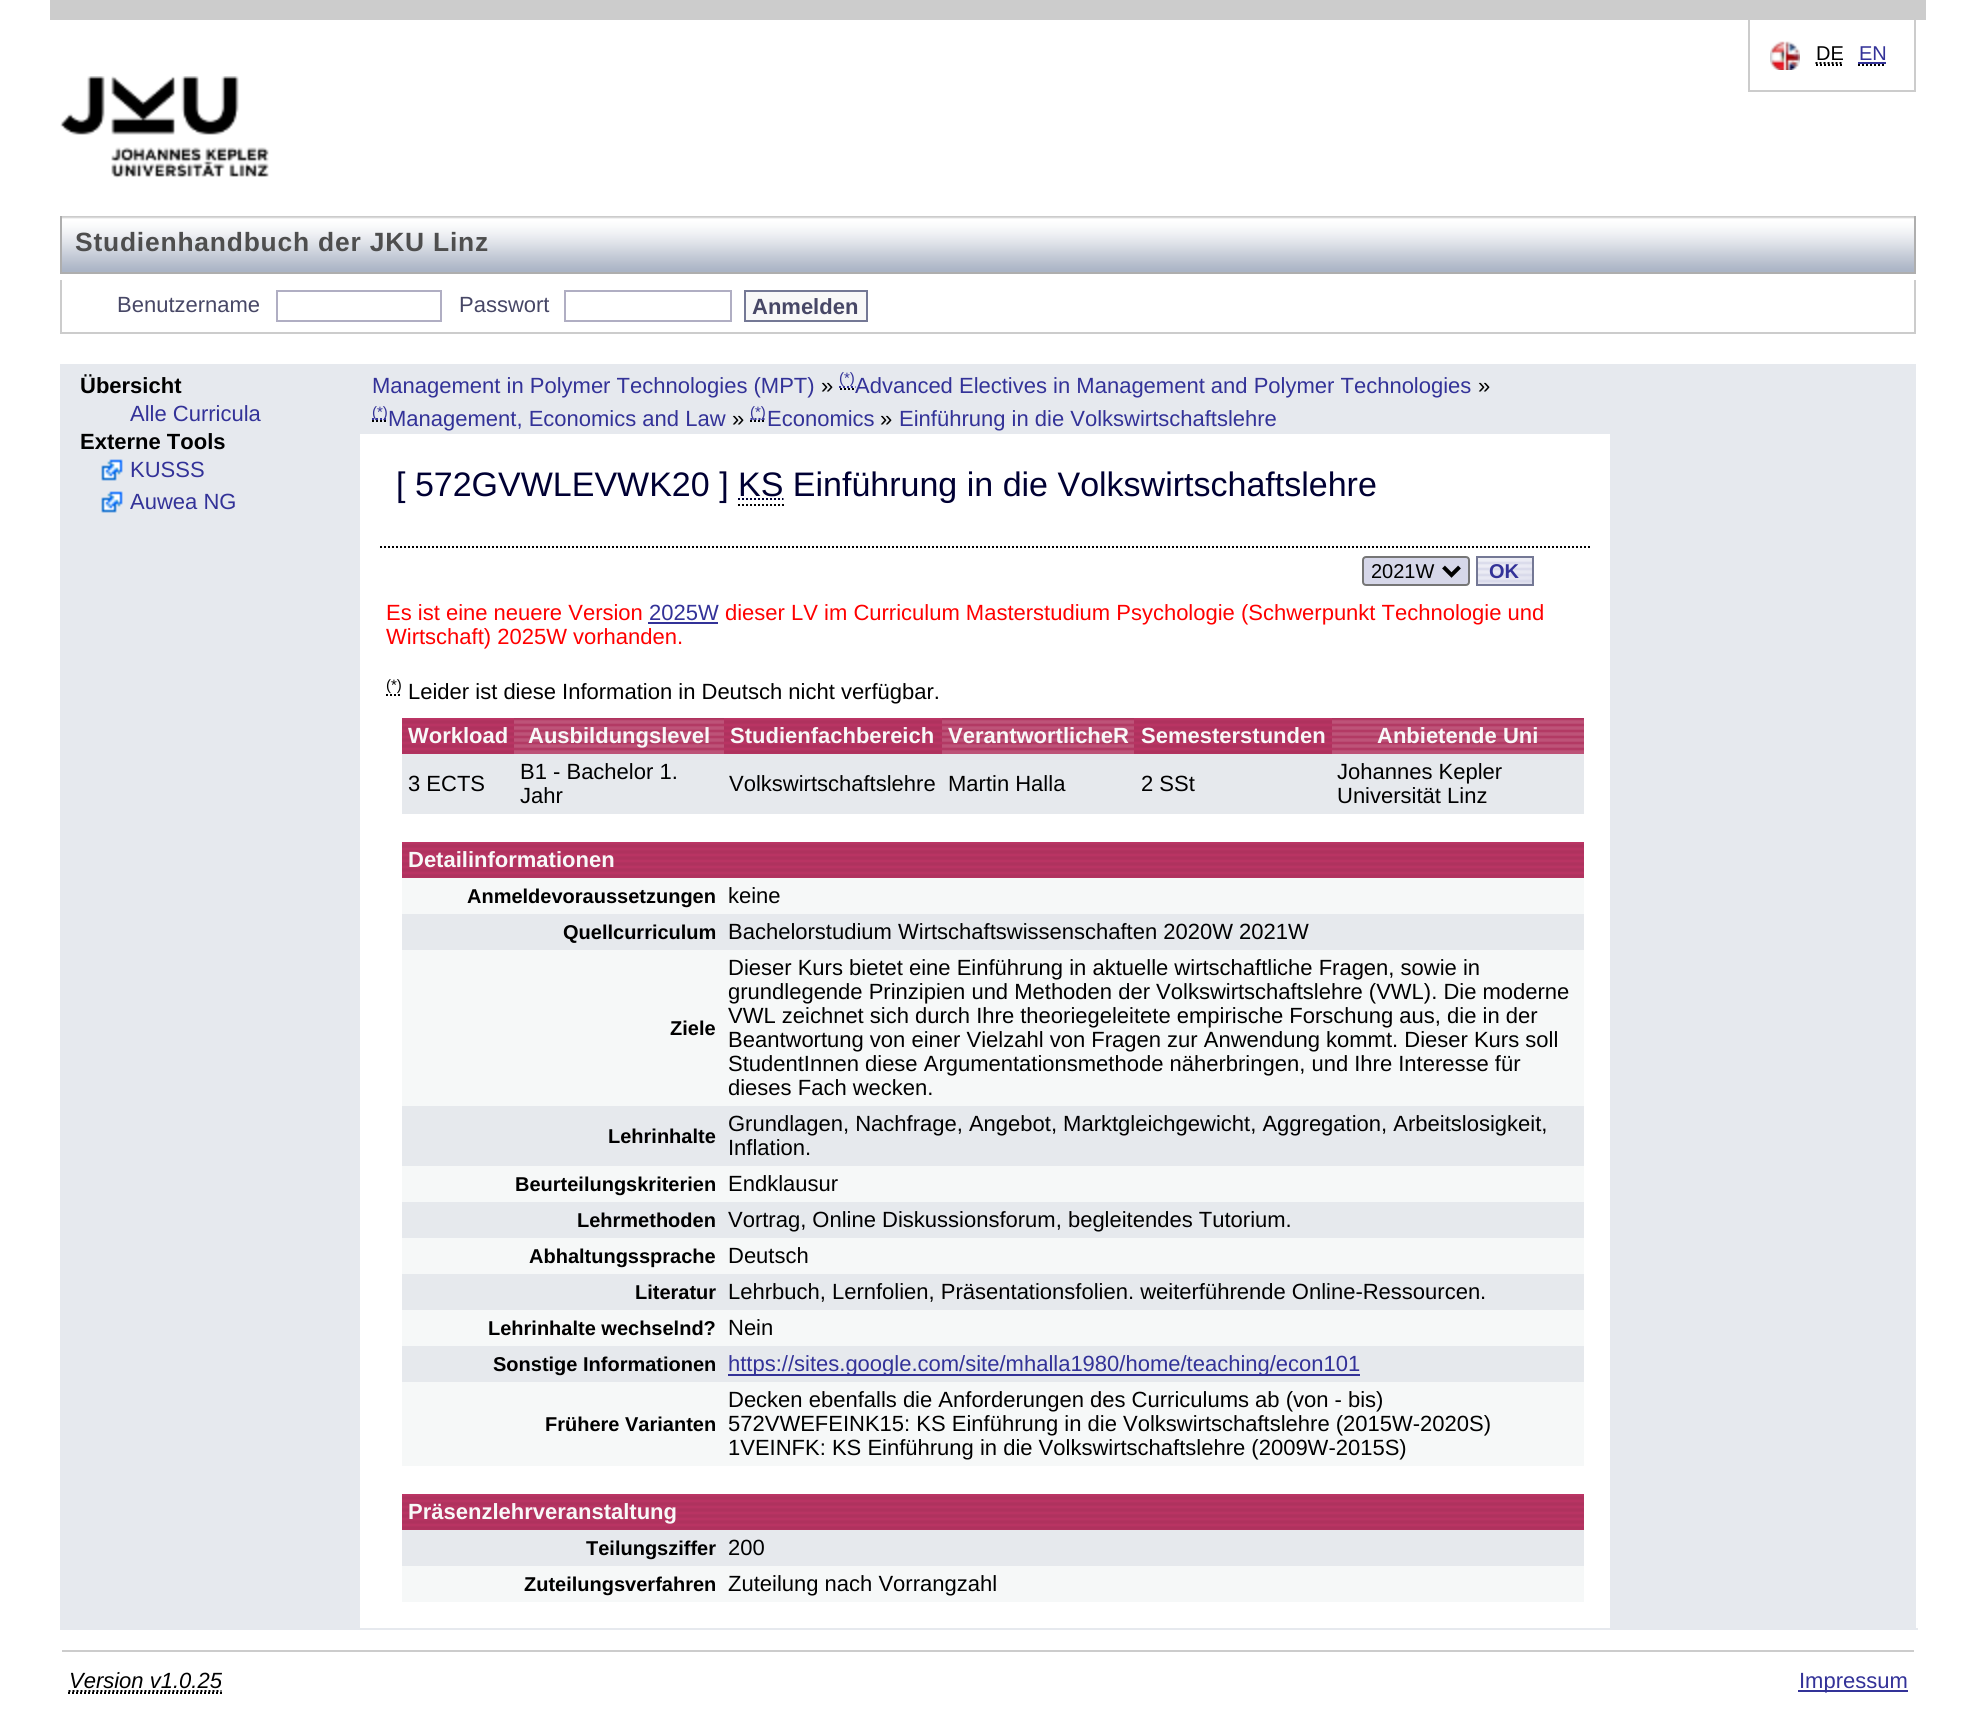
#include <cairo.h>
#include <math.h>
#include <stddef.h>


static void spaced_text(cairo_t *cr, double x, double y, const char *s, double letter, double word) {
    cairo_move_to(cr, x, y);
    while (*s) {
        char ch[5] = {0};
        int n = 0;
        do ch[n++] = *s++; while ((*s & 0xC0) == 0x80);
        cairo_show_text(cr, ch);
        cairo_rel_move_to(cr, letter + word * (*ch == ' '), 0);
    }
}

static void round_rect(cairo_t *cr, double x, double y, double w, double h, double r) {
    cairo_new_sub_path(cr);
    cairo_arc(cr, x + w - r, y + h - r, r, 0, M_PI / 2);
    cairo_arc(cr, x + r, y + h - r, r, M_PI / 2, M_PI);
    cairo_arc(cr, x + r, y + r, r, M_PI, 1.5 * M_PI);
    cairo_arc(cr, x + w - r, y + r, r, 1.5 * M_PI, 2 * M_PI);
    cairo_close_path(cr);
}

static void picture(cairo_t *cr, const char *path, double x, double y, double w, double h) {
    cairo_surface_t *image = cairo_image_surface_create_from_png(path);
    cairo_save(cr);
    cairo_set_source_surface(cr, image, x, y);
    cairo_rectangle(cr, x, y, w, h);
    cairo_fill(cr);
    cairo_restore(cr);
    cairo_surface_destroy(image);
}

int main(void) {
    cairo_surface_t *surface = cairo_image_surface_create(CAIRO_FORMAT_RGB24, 1976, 1725);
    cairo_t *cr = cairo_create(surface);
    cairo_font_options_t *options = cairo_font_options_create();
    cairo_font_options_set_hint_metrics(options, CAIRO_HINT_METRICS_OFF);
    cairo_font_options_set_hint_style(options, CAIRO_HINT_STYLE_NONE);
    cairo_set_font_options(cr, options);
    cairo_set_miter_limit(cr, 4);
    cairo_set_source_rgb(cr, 1, 1, 1);
    cairo_paint(cr);
    cairo_set_source_rgb(cr, 0.8, 0.8, 0.8);
    cairo_rectangle(cr, 50, 0, 1876, 20);
    cairo_fill(cr);
    cairo_rectangle(cr, 1914, 20, 2, 72);
    cairo_fill(cr);
    cairo_rectangle(cr, 1748, 90, 168, 2);
    cairo_fill(cr);
    cairo_rectangle(cr, 1748, 20, 2, 72);
    cairo_fill(cr);
    picture(cr, "img1.png", 1770, 41, 30, 29);
    cairo_select_font_face(cr, "Liberation Sans", CAIRO_FONT_SLANT_NORMAL, CAIRO_FONT_WEIGHT_NORMAL);
    cairo_set_font_size(cr, 20);
    cairo_set_source_rgb(cr, 0, 0, 0);
    cairo_move_to(cr, 1816, 60);
    cairo_show_text(cr, "DE");
    cairo_new_path(cr);
    cairo_move_to(cr, 1816, 65);
    cairo_line_to(cr, 1842, 65);
    cairo_move_to(cr, 1815.5, 63);
    cairo_line_to(cr, 1843, 63);
    cairo_set_dash(cr, (double[]){2, 2}, 2, 0);
    cairo_stroke(cr);
    cairo_set_source_rgb(cr, 0.2, 0.196, 0.596);
    cairo_move_to(cr, 1859, 60);
    cairo_show_text(cr, "EN");
    cairo_new_path(cr);
    cairo_move_to(cr, 1858, 65);
    cairo_line_to(cr, 1886, 65);
    cairo_set_source_rgb(cr, 0, 0, 0);
    cairo_stroke(cr);
    cairo_set_source_rgb(cr, 0.2, 0.196, 0.596);
    cairo_rectangle(cr, 1858, 62, 28, 2);
    cairo_fill(cr);
    picture(cr, "img2.png", 60, 76, 209, 102);
    picture(cr, "img3.png", 62, 216, 1852, 56);
    cairo_set_source_rgb(cr, 0.682, 0.682, 0.682);
    cairo_rectangle(cr, 1914, 216, 2, 58);
    cairo_fill(cr);
    cairo_rectangle(cr, 60, 272, 1856, 2);
    cairo_fill(cr);
    cairo_rectangle(cr, 60, 216, 2, 58);
    cairo_fill(cr);
    cairo_select_font_face(cr, "Liberation Sans", CAIRO_FONT_SLANT_NORMAL, CAIRO_FONT_WEIGHT_BOLD);
    cairo_set_font_size(cr, 26.4);
    cairo_set_source_rgb(cr, 0.306, 0.306, 0.306);
    spaced_text(cr, 75, 251, "Studienhandbuch der JKU Linz", 0.8, 0);
    cairo_set_source_rgb(cr, 0.8, 0.8, 0.8);
    cairo_rectangle(cr, 1914, 280, 2, 54);
    cairo_fill(cr);
    cairo_rectangle(cr, 60, 332, 1856, 2);
    cairo_fill(cr);
    cairo_rectangle(cr, 60, 280, 2, 54);
    cairo_fill(cr);
    cairo_select_font_face(cr, "Liberation Sans", CAIRO_FONT_SLANT_NORMAL, CAIRO_FONT_WEIGHT_NORMAL);
    cairo_set_font_size(cr, 22);
    cairo_set_source_rgb(cr, 0.278, 0.278, 0.4);
    cairo_move_to(cr, 117, 312);
    cairo_show_text(cr, "Benutzername");
    cairo_rectangle(cr, 277, 291, 164, 30);
    cairo_set_source_rgb(cr, 0.69, 0.682, 0.765);
    cairo_set_dash(cr, NULL, 0, 0);
    cairo_stroke(cr);
    cairo_set_source_rgb(cr, 0.278, 0.278, 0.4);
    cairo_move_to(cr, 459, 312);
    cairo_show_text(cr, "Passwort");
    cairo_rectangle(cr, 565, 291, 166, 30);
    cairo_set_source_rgb(cr, 0.69, 0.682, 0.765);
    cairo_stroke(cr);
    cairo_set_source_rgb(cr, 0.969, 0.969, 0.969);
    cairo_rectangle(cr, 745, 291, 122, 30);
    cairo_fill_preserve(cr);
    cairo_set_source_rgb(cr, 0.455, 0.471, 0.584);
    cairo_stroke(cr);
    cairo_select_font_face(cr, "Liberation Sans", CAIRO_FONT_SLANT_NORMAL, CAIRO_FONT_WEIGHT_BOLD);
    cairo_set_source_rgb(cr, 0.278, 0.278, 0.4);
    cairo_move_to(cr, 752, 314);
    cairo_show_text(cr, "Anmelden");
    cairo_set_source_rgb(cr, 0.902, 0.914, 0.933);
    cairo_rectangle(cr, 60, 364, 300, 1264);
    cairo_fill(cr);
    cairo_set_source_rgb(cr, 0, 0, 0);
    cairo_move_to(cr, 80, 393);
    cairo_show_text(cr, "Übersicht");
    cairo_select_font_face(cr, "Liberation Sans", CAIRO_FONT_SLANT_NORMAL, CAIRO_FONT_WEIGHT_NORMAL);
    cairo_set_source_rgb(cr, 0.2, 0.196, 0.596);
    cairo_move_to(cr, 130, 421);
    cairo_show_text(cr, "Alle Curricula");
    cairo_select_font_face(cr, "Liberation Sans", CAIRO_FONT_SLANT_NORMAL, CAIRO_FONT_WEIGHT_BOLD);
    cairo_set_source_rgb(cr, 0, 0, 0);
    cairo_move_to(cr, 80, 449);
    cairo_show_text(cr, "Externe Tools");
    picture(cr, "img4.png", 101, 459, 22, 22);
    cairo_select_font_face(cr, "Liberation Sans", CAIRO_FONT_SLANT_NORMAL, CAIRO_FONT_WEIGHT_NORMAL);
    cairo_set_source_rgb(cr, 0.2, 0.196, 0.596);
    cairo_move_to(cr, 130, 477);
    cairo_show_text(cr, "KUSSS");
    picture(cr, "img4.png", 101, 491, 22, 22);
    cairo_move_to(cr, 130, 509);
    cairo_show_text(cr, "Auwea NG");
    cairo_set_source_rgb(cr, 0.902, 0.914, 0.933);
    cairo_rectangle(cr, 360, 364, 1556, 70);
    cairo_fill(cr);
    cairo_set_source_rgb(cr, 0.2, 0.196, 0.596);
    cairo_move_to(cr, 372, 393);
    cairo_show_text(cr, "Management in Polymer Technologies (MPT)");
    cairo_set_source_rgb(cr, 0, 0, 0);
    cairo_move_to(cr, 821, 393);
    cairo_show_text(cr, "»");
    cairo_new_path(cr);
    cairo_move_to(cr, 839, 387);
    cairo_line_to(cr, 855.5, 387);
    cairo_set_source_rgb(cr, 0.2, 0.196, 0.596);
    cairo_set_dash(cr, (double[]){2, 2}, 2, 0);
    cairo_stroke(cr);
    cairo_set_font_size(cr, 15);
    cairo_move_to(cr, 839, 383);
    cairo_show_text(cr, "(*)");
    cairo_set_font_size(cr, 22);
    cairo_move_to(cr, 855, 393);
    cairo_show_text(cr, "Advanced Electives in Management and Polymer Technologies");
    cairo_new_path(cr);
    cairo_move_to(cr, 840, 389);
    cairo_line_to(cr, 856, 389);
    cairo_set_source_rgb(cr, 0, 0, 0);
    cairo_stroke(cr);
    cairo_move_to(cr, 1478, 393);
    cairo_show_text(cr, "»");
    cairo_new_path(cr);
    cairo_move_to(cr, 372, 421);
    cairo_line_to(cr, 388, 421);
    cairo_stroke(cr);
    cairo_new_path(cr);
    cairo_move_to(cr, 372, 419);
    cairo_line_to(cr, 388, 419);
    cairo_set_source_rgb(cr, 0.2, 0.196, 0.596);
    cairo_stroke(cr);
    cairo_set_font_size(cr, 15);
    cairo_move_to(cr, 372, 417);
    cairo_show_text(cr, "(*)");
    cairo_set_font_size(cr, 22);
    cairo_move_to(cr, 388, 426);
    cairo_show_text(cr, "Management, Economics and Law");
    cairo_set_source_rgb(cr, 0, 0, 0);
    cairo_move_to(cr, 732, 426);
    cairo_show_text(cr, "»");
    cairo_new_path(cr);
    cairo_move_to(cr, 750, 421);
    cairo_line_to(cr, 766, 421);
    cairo_stroke(cr);
    cairo_new_path(cr);
    cairo_move_to(cr, 750.5, 419);
    cairo_line_to(cr, 766.5, 419);
    cairo_set_source_rgb(cr, 0.2, 0.196, 0.596);
    cairo_stroke(cr);
    cairo_set_font_size(cr, 15);
    cairo_move_to(cr, 750, 417);
    cairo_show_text(cr, "(*)");
    cairo_set_font_size(cr, 22);
    cairo_move_to(cr, 767, 426);
    cairo_show_text(cr, "Economics");
    cairo_set_source_rgb(cr, 0, 0, 0);
    cairo_move_to(cr, 880, 426);
    cairo_show_text(cr, "»");
    cairo_set_source_rgb(cr, 0.2, 0.196, 0.596);
    cairo_move_to(cr, 899, 426);
    cairo_show_text(cr, "Einführung in die Volkswirtschaftslehre");
    cairo_set_source_rgb(cr, 0.902, 0.914, 0.933);
    cairo_rectangle(cr, 1610, 432, 2, 1196);
    cairo_fill(cr);
    cairo_new_path(cr);
    cairo_move_to(cr, 380, 547);
    cairo_line_to(cr, 1590, 547);
    cairo_set_source_rgb(cr, 0, 0, 0);
    cairo_stroke(cr);
    cairo_set_font_size(cr, 34);
    cairo_set_source_rgb(cr, 0, 0, 0.2);
    cairo_move_to(cr, 396, 496);
    cairo_show_text(cr, "[ 572GVWLEVWK20 ] KS Einführung in die Volkswirtschaftslehre");
    cairo_new_path(cr);
    cairo_move_to(cr, 738, 499);
    cairo_line_to(cr, 783.5, 499);
    cairo_stroke(cr);
    cairo_new_path(cr);
    cairo_move_to(cr, 738, 505);
    cairo_line_to(cr, 784, 505);
    cairo_set_source_rgb(cr, 0, 0, 0);
    cairo_stroke(cr);
    cairo_set_source_rgb(cr, 0.839, 0.843, 0.914);
    round_rect(cr, 1363, 557, 106, 28, 3);
    cairo_fill_preserve(cr);
    cairo_set_source_rgb(cr, 0.463, 0.463, 0.463);
    cairo_set_dash(cr, NULL, 0, 0);
    cairo_stroke(cr);
    cairo_new_path(cr);
    cairo_move_to(cr, 1443.5, 567);
    cairo_line_to(cr, 1451.5, 575);
    cairo_line_to(cr, 1459.5, 567);
    cairo_set_source_rgb(cr, 0, 0, 0);
    cairo_set_line_width(cr, 4);
    cairo_stroke(cr);
    cairo_set_font_size(cr, 20);
    cairo_move_to(cr, 1371, 578);
    cairo_show_text(cr, "2021W");
    picture(cr, "img5.png", 1478, 558, 54, 26);
    cairo_rectangle(cr, 1477, 557, 56, 28);
    cairo_set_source_rgb(cr, 0.455, 0.471, 0.584);
    cairo_set_line_width(cr, 2);
    cairo_stroke(cr);
    cairo_select_font_face(cr, "Liberation Sans", CAIRO_FONT_SLANT_NORMAL, CAIRO_FONT_WEIGHT_BOLD);
    cairo_set_source_rgb(cr, 0.2, 0.196, 0.596);
    cairo_move_to(cr, 1489, 578);
    cairo_show_text(cr, "OK");
    cairo_select_font_face(cr, "Liberation Sans", CAIRO_FONT_SLANT_NORMAL, CAIRO_FONT_WEIGHT_NORMAL);
    cairo_set_font_size(cr, 22);
    cairo_set_source_rgb(cr, 1, 0, 0);
    cairo_move_to(cr, 386, 620);
    cairo_show_text(cr, "Es ist eine neuere Version");
    cairo_set_source_rgb(cr, 0.2, 0.196, 0.596);
    cairo_move_to(cr, 649, 620);
    cairo_show_text(cr, "2025W");
    cairo_rectangle(cr, 648, 622, 70, 2);
    cairo_fill(cr);
    cairo_set_source_rgb(cr, 1, 0, 0);
    cairo_move_to(cr, 725, 620);
    cairo_show_text(cr, "dieser LV im Curriculum Masterstudium Psychologie (Schwerpunkt Technologie und");
    cairo_move_to(cr, 386, 644);
    cairo_show_text(cr, "Wirtschaft) 2025W vorhanden.");
    cairo_set_font_size(cr, 15);
    cairo_set_source_rgb(cr, 0, 0, 0);
    cairo_move_to(cr, 386, 690);
    cairo_show_text(cr, "(*)");
    cairo_new_path(cr);
    cairo_move_to(cr, 386, 695);
    cairo_line_to(cr, 402, 695);
    cairo_set_dash(cr, (double[]){2, 2}, 2, 0);
    cairo_stroke(cr);
    cairo_set_font_size(cr, 22);
    cairo_move_to(cr, 408, 699);
    cairo_show_text(cr, "Leider ist diese Information in Deutsch nicht verfügbar.");
    picture(cr, "img6.png", 402, 718, 112, 36);
    cairo_select_font_face(cr, "Liberation Sans", CAIRO_FONT_SLANT_NORMAL, CAIRO_FONT_WEIGHT_BOLD);
    cairo_set_source_rgb(cr, 0.969, 0.969, 0.969);
    cairo_move_to(cr, 408, 743);
    cairo_show_text(cr, "Workload");
    picture(cr, "img7.png", 514, 718, 210, 36);
    cairo_move_to(cr, 528, 743);
    cairo_show_text(cr, "Ausbildungslevel");
    picture(cr, "img8.png", 724, 718, 218, 36);
    cairo_move_to(cr, 730, 743);
    cairo_show_text(cr, "Studienfachbereich");
    picture(cr, "img9.png", 942, 718, 192, 36);
    cairo_move_to(cr, 948, 743);
    cairo_show_text(cr, "VerantwortlicheR");
    picture(cr, "img10.png", 1134, 718, 198, 36);
    cairo_move_to(cr, 1141, 743);
    cairo_show_text(cr, "Semesterstunden");
    picture(cr, "img11.png", 1332, 718, 252, 36);
    cairo_move_to(cr, 1377, 743);
    cairo_show_text(cr, "Anbietende Uni");
    cairo_set_source_rgb(cr, 0.902, 0.914, 0.929);
    cairo_rectangle(cr, 402, 754, 1182, 60);
    cairo_fill(cr);
    cairo_select_font_face(cr, "Liberation Sans", CAIRO_FONT_SLANT_NORMAL, CAIRO_FONT_WEIGHT_NORMAL);
    cairo_set_source_rgb(cr, 0, 0, 0);
    cairo_move_to(cr, 408, 791);
    cairo_show_text(cr, "3 ECTS");
    cairo_move_to(cr, 520, 779);
    cairo_show_text(cr, "B1 - Bachelor 1.");
    cairo_move_to(cr, 520, 803);
    cairo_show_text(cr, "Jahr");
    cairo_move_to(cr, 729, 791);
    cairo_show_text(cr, "Volkswirtschaftslehre");
    cairo_move_to(cr, 948, 791);
    cairo_show_text(cr, "Martin Halla");
    cairo_move_to(cr, 1141, 791);
    cairo_show_text(cr, "2 SSt");
    cairo_move_to(cr, 1337, 779);
    cairo_show_text(cr, "Johannes Kepler");
    cairo_move_to(cr, 1337, 803);
    cairo_show_text(cr, "Universität Linz");
    picture(cr, "img12.png", 402, 842, 1182, 36);
    cairo_select_font_face(cr, "Liberation Sans", CAIRO_FONT_SLANT_NORMAL, CAIRO_FONT_WEIGHT_BOLD);
    cairo_set_source_rgb(cr, 0.969, 0.969, 0.969);
    cairo_move_to(cr, 408, 867);
    cairo_show_text(cr, "Detailinformationen");
    cairo_set_source_rgb(cr, 0.961, 0.969, 0.969);
    cairo_rectangle(cr, 402, 878, 1182, 36);
    cairo_fill(cr);
    cairo_set_font_size(cr, 20);
    cairo_set_source_rgb(cr, 0, 0, 0);
    cairo_move_to(cr, 467, 903);
    cairo_show_text(cr, "Anmeldevoraussetzungen");
    cairo_select_font_face(cr, "Liberation Sans", CAIRO_FONT_SLANT_NORMAL, CAIRO_FONT_WEIGHT_NORMAL);
    cairo_set_font_size(cr, 22);
    cairo_move_to(cr, 728, 903);
    cairo_show_text(cr, "keine");
    cairo_set_source_rgb(cr, 0.902, 0.914, 0.929);
    cairo_rectangle(cr, 402, 914, 1182, 36);
    cairo_fill(cr);
    cairo_select_font_face(cr, "Liberation Sans", CAIRO_FONT_SLANT_NORMAL, CAIRO_FONT_WEIGHT_BOLD);
    cairo_set_font_size(cr, 20);
    cairo_set_source_rgb(cr, 0, 0, 0);
    cairo_move_to(cr, 563, 939);
    cairo_show_text(cr, "Quellcurriculum");
    cairo_select_font_face(cr, "Liberation Sans", CAIRO_FONT_SLANT_NORMAL, CAIRO_FONT_WEIGHT_NORMAL);
    cairo_set_font_size(cr, 22);
    cairo_move_to(cr, 728, 939);
    cairo_show_text(cr, "Bachelorstudium Wirtschaftswissenschaften 2020W 2021W");
    cairo_set_source_rgb(cr, 0.961, 0.969, 0.969);
    cairo_rectangle(cr, 402, 950, 1182, 156);
    cairo_fill(cr);
    cairo_select_font_face(cr, "Liberation Sans", CAIRO_FONT_SLANT_NORMAL, CAIRO_FONT_WEIGHT_BOLD);
    cairo_set_font_size(cr, 20);
    cairo_set_source_rgb(cr, 0, 0, 0);
    cairo_move_to(cr, 670, 1035);
    cairo_show_text(cr, "Ziele");
    cairo_select_font_face(cr, "Liberation Sans", CAIRO_FONT_SLANT_NORMAL, CAIRO_FONT_WEIGHT_NORMAL);
    cairo_set_font_size(cr, 22);
    cairo_move_to(cr, 728, 975);
    cairo_show_text(cr, "Dieser Kurs bietet eine Einführung in aktuelle wirtschaftliche Fragen, sowie in");
    cairo_move_to(cr, 728, 999);
    cairo_show_text(cr, "grundlegende Prinzipien und Methoden der Volkswirtschaftslehre (VWL). Die moderne");
    cairo_move_to(cr, 728, 1023);
    cairo_show_text(cr, "VWL zeichnet sich durch Ihre theoriegeleitete empirische Forschung aus, die in der");
    cairo_move_to(cr, 728, 1047);
    cairo_show_text(cr, "Beantwortung von einer Vielzahl von Fragen zur Anwendung kommt. Dieser Kurs soll");
    cairo_move_to(cr, 728, 1071);
    cairo_show_text(cr, "StudentInnen diese Argumentationsmethode näherbringen, und Ihre Interesse für");
    cairo_move_to(cr, 728, 1095);
    cairo_show_text(cr, "dieses Fach wecken.");
    cairo_set_source_rgb(cr, 0.902, 0.914, 0.929);
    cairo_rectangle(cr, 402, 1106, 1182, 60);
    cairo_fill(cr);
    cairo_select_font_face(cr, "Liberation Sans", CAIRO_FONT_SLANT_NORMAL, CAIRO_FONT_WEIGHT_BOLD);
    cairo_set_font_size(cr, 20);
    cairo_set_source_rgb(cr, 0, 0, 0);
    cairo_move_to(cr, 608, 1143);
    cairo_show_text(cr, "Lehrinhalte");
    cairo_select_font_face(cr, "Liberation Sans", CAIRO_FONT_SLANT_NORMAL, CAIRO_FONT_WEIGHT_NORMAL);
    cairo_set_font_size(cr, 22);
    cairo_move_to(cr, 728, 1131);
    cairo_show_text(cr, "Grundlagen, Nachfrage, Angebot, Marktgleichgewicht, Aggregation, Arbeitslosigkeit,");
    cairo_move_to(cr, 728, 1155);
    cairo_show_text(cr, "Inflation.");
    cairo_set_source_rgb(cr, 0.961, 0.969, 0.969);
    cairo_rectangle(cr, 402, 1166, 1182, 36);
    cairo_fill(cr);
    cairo_select_font_face(cr, "Liberation Sans", CAIRO_FONT_SLANT_NORMAL, CAIRO_FONT_WEIGHT_BOLD);
    cairo_set_font_size(cr, 20);
    cairo_set_source_rgb(cr, 0, 0, 0);
    cairo_move_to(cr, 515, 1191);
    cairo_show_text(cr, "Beurteilungskriterien");
    cairo_select_font_face(cr, "Liberation Sans", CAIRO_FONT_SLANT_NORMAL, CAIRO_FONT_WEIGHT_NORMAL);
    cairo_set_font_size(cr, 22);
    cairo_move_to(cr, 728, 1191);
    cairo_show_text(cr, "Endklausur");
    cairo_set_source_rgb(cr, 0.902, 0.914, 0.929);
    cairo_rectangle(cr, 402, 1202, 1182, 36);
    cairo_fill(cr);
    cairo_select_font_face(cr, "Liberation Sans", CAIRO_FONT_SLANT_NORMAL, CAIRO_FONT_WEIGHT_BOLD);
    cairo_set_font_size(cr, 20);
    cairo_set_source_rgb(cr, 0, 0, 0);
    cairo_move_to(cr, 577, 1227);
    cairo_show_text(cr, "Lehrmethoden");
    cairo_select_font_face(cr, "Liberation Sans", CAIRO_FONT_SLANT_NORMAL, CAIRO_FONT_WEIGHT_NORMAL);
    cairo_set_font_size(cr, 22);
    cairo_move_to(cr, 728, 1227);
    cairo_show_text(cr, "Vortrag, Online Diskussionsforum, begleitendes Tutorium.");
    cairo_set_source_rgb(cr, 0.961, 0.969, 0.969);
    cairo_rectangle(cr, 402, 1238, 1182, 36);
    cairo_fill(cr);
    cairo_select_font_face(cr, "Liberation Sans", CAIRO_FONT_SLANT_NORMAL, CAIRO_FONT_WEIGHT_BOLD);
    cairo_set_font_size(cr, 20);
    cairo_set_source_rgb(cr, 0, 0, 0);
    cairo_move_to(cr, 529, 1263);
    cairo_show_text(cr, "Abhaltungssprache");
    cairo_select_font_face(cr, "Liberation Sans", CAIRO_FONT_SLANT_NORMAL, CAIRO_FONT_WEIGHT_NORMAL);
    cairo_set_font_size(cr, 22);
    cairo_move_to(cr, 728, 1263);
    cairo_show_text(cr, "Deutsch");
    cairo_set_source_rgb(cr, 0.902, 0.914, 0.929);
    cairo_rectangle(cr, 402, 1274, 1182, 36);
    cairo_fill(cr);
    cairo_select_font_face(cr, "Liberation Sans", CAIRO_FONT_SLANT_NORMAL, CAIRO_FONT_WEIGHT_BOLD);
    cairo_set_font_size(cr, 20);
    cairo_set_source_rgb(cr, 0, 0, 0);
    cairo_move_to(cr, 635, 1299);
    cairo_show_text(cr, "Literatur");
    cairo_select_font_face(cr, "Liberation Sans", CAIRO_FONT_SLANT_NORMAL, CAIRO_FONT_WEIGHT_NORMAL);
    cairo_set_font_size(cr, 22);
    cairo_move_to(cr, 728, 1299);
    cairo_show_text(cr, "Lehrbuch, Lernfolien, Präsentationsfolien. weiterführende Online-Ressourcen.");
    cairo_set_source_rgb(cr, 0.961, 0.969, 0.969);
    cairo_rectangle(cr, 402, 1310, 1182, 36);
    cairo_fill(cr);
    cairo_select_font_face(cr, "Liberation Sans", CAIRO_FONT_SLANT_NORMAL, CAIRO_FONT_WEIGHT_BOLD);
    cairo_set_font_size(cr, 20);
    cairo_set_source_rgb(cr, 0, 0, 0);
    cairo_move_to(cr, 488, 1335);
    cairo_show_text(cr, "Lehrinhalte wechselnd?");
    cairo_select_font_face(cr, "Liberation Sans", CAIRO_FONT_SLANT_NORMAL, CAIRO_FONT_WEIGHT_NORMAL);
    cairo_set_font_size(cr, 22);
    cairo_move_to(cr, 728, 1335);
    cairo_show_text(cr, "Nein");
    cairo_set_source_rgb(cr, 0.902, 0.914, 0.929);
    cairo_rectangle(cr, 402, 1346, 1182, 36);
    cairo_fill(cr);
    cairo_select_font_face(cr, "Liberation Sans", CAIRO_FONT_SLANT_NORMAL, CAIRO_FONT_WEIGHT_BOLD);
    cairo_set_font_size(cr, 20);
    cairo_set_source_rgb(cr, 0, 0, 0);
    cairo_move_to(cr, 493, 1371);
    cairo_show_text(cr, "Sonstige Informationen");
    cairo_set_source_rgb(cr, 0.2, 0.196, 0.596);
    cairo_rectangle(cr, 728, 1374, 632, 2);
    cairo_fill(cr);
    cairo_select_font_face(cr, "Liberation Sans", CAIRO_FONT_SLANT_NORMAL, CAIRO_FONT_WEIGHT_NORMAL);
    cairo_set_font_size(cr, 22);
    cairo_move_to(cr, 728, 1371);
    cairo_show_text(cr, "https://sites.google.com/site/mhalla1980/home/teaching/econ101");
    cairo_set_source_rgb(cr, 0.961, 0.969, 0.969);
    cairo_rectangle(cr, 402, 1382, 1182, 84);
    cairo_fill(cr);
    cairo_select_font_face(cr, "Liberation Sans", CAIRO_FONT_SLANT_NORMAL, CAIRO_FONT_WEIGHT_BOLD);
    cairo_set_font_size(cr, 20);
    cairo_set_source_rgb(cr, 0, 0, 0);
    cairo_move_to(cr, 545, 1431);
    cairo_show_text(cr, "Frühere Varianten");
    cairo_select_font_face(cr, "Liberation Sans", CAIRO_FONT_SLANT_NORMAL, CAIRO_FONT_WEIGHT_NORMAL);
    cairo_set_font_size(cr, 22);
    cairo_move_to(cr, 728, 1407);
    cairo_show_text(cr, "Decken ebenfalls die Anforderungen des Curriculums ab (von - bis)");
    cairo_move_to(cr, 728, 1431);
    cairo_show_text(cr, "572VWEFEINK15: KS Einführung in die Volkswirtschaftslehre (2015W-2020S)");
    cairo_move_to(cr, 728, 1455);
    cairo_show_text(cr, "1VEINFK: KS Einführung in die Volkswirtschaftslehre (2009W-2015S)");
    picture(cr, "img12.png", 402, 1494, 1182, 36);
    cairo_select_font_face(cr, "Liberation Sans", CAIRO_FONT_SLANT_NORMAL, CAIRO_FONT_WEIGHT_BOLD);
    cairo_set_source_rgb(cr, 0.969, 0.969, 0.969);
    cairo_move_to(cr, 408, 1519);
    cairo_show_text(cr, "Präsenzlehrveranstaltung");
    cairo_set_source_rgb(cr, 0.902, 0.914, 0.929);
    cairo_rectangle(cr, 402, 1530, 1182, 36);
    cairo_fill(cr);
    cairo_set_font_size(cr, 20);
    cairo_set_source_rgb(cr, 0, 0, 0);
    cairo_move_to(cr, 586, 1555);
    cairo_show_text(cr, "Teilungsziffer");
    cairo_select_font_face(cr, "Liberation Sans", CAIRO_FONT_SLANT_NORMAL, CAIRO_FONT_WEIGHT_NORMAL);
    cairo_set_font_size(cr, 22);
    cairo_move_to(cr, 728, 1555);
    cairo_show_text(cr, "200");
    cairo_set_source_rgb(cr, 0.961, 0.969, 0.969);
    cairo_rectangle(cr, 402, 1566, 1182, 36);
    cairo_fill(cr);
    cairo_select_font_face(cr, "Liberation Sans", CAIRO_FONT_SLANT_NORMAL, CAIRO_FONT_WEIGHT_BOLD);
    cairo_set_font_size(cr, 20);
    cairo_set_source_rgb(cr, 0, 0, 0);
    cairo_move_to(cr, 524, 1591);
    cairo_show_text(cr, "Zuteilungsverfahren");
    cairo_select_font_face(cr, "Liberation Sans", CAIRO_FONT_SLANT_NORMAL, CAIRO_FONT_WEIGHT_NORMAL);
    cairo_set_font_size(cr, 22);
    cairo_move_to(cr, 728, 1591);
    cairo_show_text(cr, "Zuteilung nach Vorrangzahl");
    cairo_set_source_rgb(cr, 0.902, 0.914, 0.933);
    cairo_rectangle(cr, 1612, 434, 304, 1194);
    cairo_fill(cr);
    cairo_rectangle(cr, 60, 1628, 1858, 2);
    cairo_fill(cr);
    cairo_set_source_rgb(cr, 0.8, 0.8, 0.8);
    cairo_rectangle(cr, 62, 1650, 1852, 2);
    cairo_fill(cr);
    cairo_select_font_face(cr, "Liberation Sans", CAIRO_FONT_SLANT_ITALIC, CAIRO_FONT_WEIGHT_NORMAL);
    cairo_set_source_rgb(cr, 0, 0, 0);
    cairo_move_to(cr, 69, 1688);
    cairo_show_text(cr, "Version v1.0.25");
    cairo_new_path(cr);
    cairo_move_to(cr, 68, 1693);
    cairo_line_to(cr, 222, 1693);
    cairo_stroke(cr);
    cairo_new_path(cr);
    cairo_move_to(cr, 68.5, 1691);
    cairo_line_to(cr, 221.5, 1691);
    cairo_stroke(cr);
    cairo_set_source_rgb(cr, 0.2, 0.196, 0.596);
    cairo_rectangle(cr, 1798, 1690, 110, 2);
    cairo_fill(cr);
    cairo_select_font_face(cr, "Liberation Sans", CAIRO_FONT_SLANT_NORMAL, CAIRO_FONT_WEIGHT_NORMAL);
    cairo_move_to(cr, 1799, 1688);
    cairo_show_text(cr, "Impressum");
    cairo_surface_write_to_png(surface, "page.png");
    cairo_font_options_destroy(options);
    cairo_destroy(cr);
    cairo_surface_destroy(surface);
    return 0;
}
